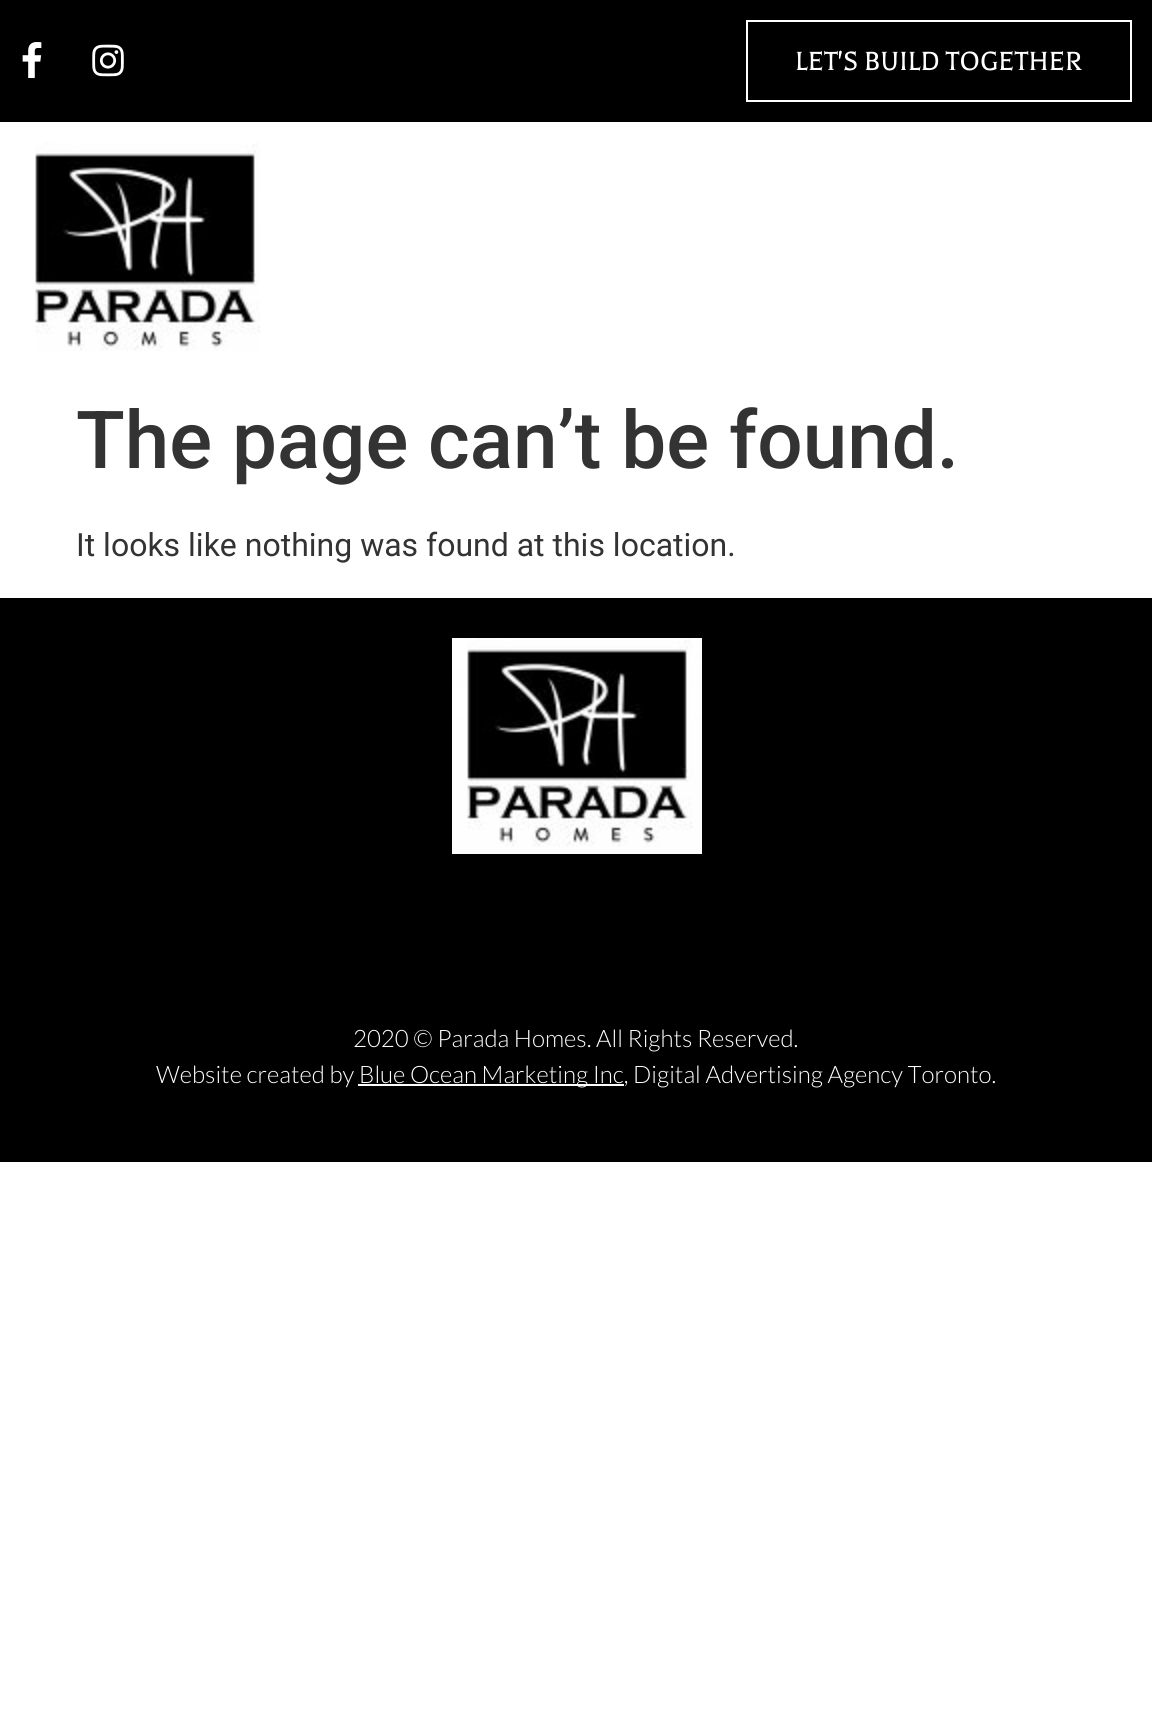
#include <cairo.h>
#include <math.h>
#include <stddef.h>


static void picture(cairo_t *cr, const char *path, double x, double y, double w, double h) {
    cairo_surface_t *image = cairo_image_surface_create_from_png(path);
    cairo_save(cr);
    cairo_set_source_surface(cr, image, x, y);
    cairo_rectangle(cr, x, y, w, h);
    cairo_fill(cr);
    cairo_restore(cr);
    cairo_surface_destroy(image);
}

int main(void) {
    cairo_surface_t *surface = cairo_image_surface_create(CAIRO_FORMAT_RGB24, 1152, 1726);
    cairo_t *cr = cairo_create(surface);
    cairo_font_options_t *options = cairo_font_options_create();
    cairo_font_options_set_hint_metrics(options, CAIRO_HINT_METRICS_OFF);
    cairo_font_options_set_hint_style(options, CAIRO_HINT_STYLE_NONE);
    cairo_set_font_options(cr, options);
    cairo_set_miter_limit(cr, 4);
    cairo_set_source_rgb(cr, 1, 1, 1);
    cairo_paint(cr);
    cairo_set_source_rgb(cr, 0, 0, 0);
    cairo_rectangle(cr, 0, 0, 1152, 122);
    cairo_fill(cr);
    picture(cr, "img1.png", 22, 42, 20, 36);
    picture(cr, "img2.png", 92, 44, 32, 33);
    cairo_rectangle(cr, 747, 21, 384, 80);
    cairo_set_source_rgb(cr, 1, 1, 1);
    cairo_stroke(cr);
    cairo_select_font_face(cr, "Balthazar", CAIRO_FONT_SLANT_NORMAL, CAIRO_FONT_WEIGHT_NORMAL);
    cairo_set_font_size(cr, 30);
    cairo_move_to(cr, 795, 70);
    cairo_show_text(cr, "LET'S BUILD TOGETHER");
    picture(cr, "img3.png", 35, 142, 225, 209);
    cairo_select_font_face(cr, "Roboto Medium", CAIRO_FONT_SLANT_NORMAL, CAIRO_FONT_WEIGHT_NORMAL);
    cairo_set_font_size(cr, 80);
    cairo_set_source_rgb(cr, 0.2, 0.2, 0.2);
    cairo_move_to(cr, 76, 468);
    cairo_show_text(cr, "The page can’t be found.");
    cairo_select_font_face(cr, "Roboto", CAIRO_FONT_SLANT_NORMAL, CAIRO_FONT_WEIGHT_NORMAL);
    cairo_set_font_size(cr, 32);
    cairo_move_to(cr, 76, 556);
    cairo_show_text(cr, "It looks like nothing was found at this location.");
    cairo_set_source_rgb(cr, 0, 0, 0);
    cairo_rectangle(cr, 0, 598, 1152, 564);
    cairo_fill(cr);
    picture(cr, "img4.png", 452, 638, 250, 216);
    cairo_select_font_face(cr, "Lato Light", CAIRO_FONT_SLANT_NORMAL, CAIRO_FONT_WEIGHT_NORMAL);
    cairo_set_font_size(cr, 24);
    cairo_set_source_rgb(cr, 1, 1, 1);
    cairo_move_to(cr, 353, 1047);
    cairo_show_text(cr, "2020 © Parada Homes. All Rights Reserved.");
    cairo_move_to(cr, 156, 1083);
    cairo_show_text(cr, "Website created by");
    cairo_rectangle(cr, 358, 1084, 266, 2);
    cairo_fill(cr);
    cairo_move_to(cr, 359, 1083);
    cairo_show_text(cr, "Blue Ocean Marketing Inc, Digital Advertising Agency Toronto.");
    cairo_surface_write_to_png(surface, "page.png");
    cairo_font_options_destroy(options);
    cairo_destroy(cr);
    cairo_surface_destroy(surface);
    return 0;
}
